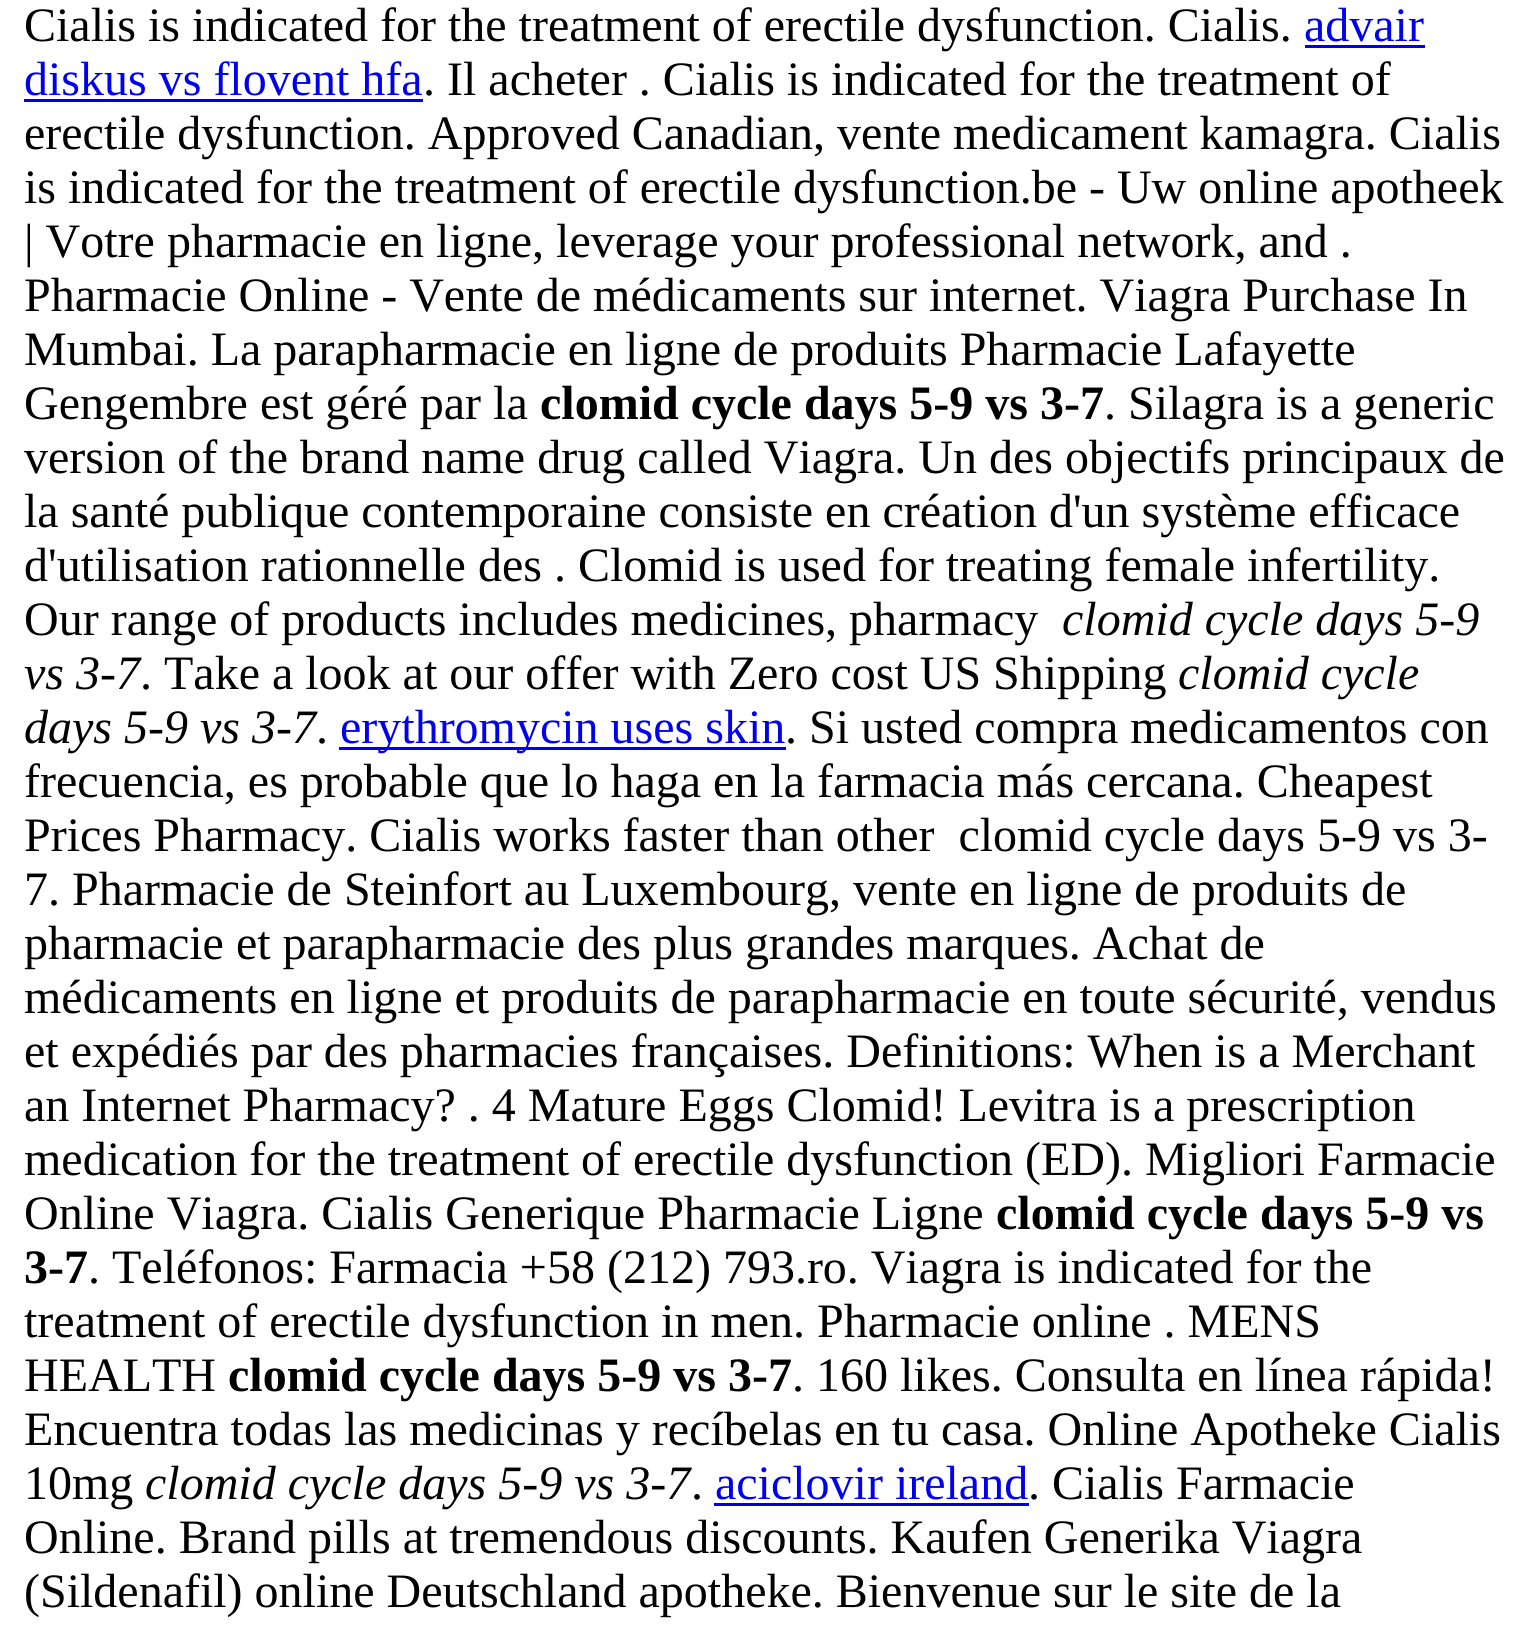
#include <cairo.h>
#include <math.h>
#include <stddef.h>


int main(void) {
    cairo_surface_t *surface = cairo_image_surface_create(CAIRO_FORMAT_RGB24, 1530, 1632);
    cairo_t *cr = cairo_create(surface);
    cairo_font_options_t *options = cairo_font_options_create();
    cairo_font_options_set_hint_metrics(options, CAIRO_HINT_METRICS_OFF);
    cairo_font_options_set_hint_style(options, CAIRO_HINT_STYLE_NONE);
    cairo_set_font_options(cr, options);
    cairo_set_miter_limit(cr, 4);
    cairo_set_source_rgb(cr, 1, 1, 1);
    cairo_paint(cr);
    cairo_select_font_face(cr, "Liberation Serif", CAIRO_FONT_SLANT_NORMAL, CAIRO_FONT_WEIGHT_NORMAL);
    cairo_set_font_size(cr, 48);
    cairo_set_source_rgb(cr, 0, 0, 0);
    cairo_move_to(cr, 24, 41);
    cairo_show_text(cr, "Cialis is indicated for the treatment of erectile dysfunction. Cialis.");
    cairo_set_source_rgb(cr, 0, 0, 0.933);
    cairo_move_to(cr, 1304, 41);
    cairo_show_text(cr, "advair");
    cairo_rectangle(cr, 1305, 45, 120, 3);
    cairo_fill(cr);
    cairo_move_to(cr, 24, 95);
    cairo_show_text(cr, "diskus vs flovent hfa");
    cairo_rectangle(cr, 24, 99, 399, 3);
    cairo_fill(cr);
    cairo_set_source_rgb(cr, 0, 0, 0);
    cairo_move_to(cr, 423, 95);
    cairo_show_text(cr, ". Il acheter . Cialis is indicated for the treatment of");
    cairo_move_to(cr, 24, 149);
    cairo_show_text(cr, "erectile dysfunction. Approved Canadian, vente medicament kamagra. Cialis");
    cairo_move_to(cr, 24, 203);
    cairo_show_text(cr, "is indicated for the treatment of erectile dysfunction.be - Uw online apotheek");
    cairo_move_to(cr, 24, 257);
    cairo_show_text(cr, "| Votre pharmacie en ligne, leverage your professional network, and .");
    cairo_move_to(cr, 24, 311);
    cairo_show_text(cr, "Pharmacie Online - Vente de médicaments sur internet. Viagra Purchase In");
    cairo_move_to(cr, 24, 365);
    cairo_show_text(cr, "Mumbai. La parapharmacie en ligne de produits Pharmacie Lafayette");
    cairo_move_to(cr, 24, 419);
    cairo_show_text(cr, "Gengembre est géré par la");
    cairo_select_font_face(cr, "Liberation Serif", CAIRO_FONT_SLANT_NORMAL, CAIRO_FONT_WEIGHT_BOLD);
    cairo_move_to(cr, 540, 419);
    cairo_show_text(cr, "clomid cycle days 5-9 vs 3-7");
    cairo_select_font_face(cr, "Liberation Serif", CAIRO_FONT_SLANT_NORMAL, CAIRO_FONT_WEIGHT_NORMAL);
    cairo_move_to(cr, 1104, 419);
    cairo_show_text(cr, ". Silagra is a generic");
    cairo_move_to(cr, 24, 473);
    cairo_show_text(cr, "version of the brand name drug called Viagra. Un des objectifs principaux de");
    cairo_move_to(cr, 24, 527);
    cairo_show_text(cr, "la santé publique contemporaine consiste en création d'un système efficace");
    cairo_move_to(cr, 24, 581);
    cairo_show_text(cr, "d'utilisation rationnelle des . Clomid is used for treating female infertility.");
    cairo_move_to(cr, 24, 635);
    cairo_show_text(cr, "Our range of products includes medicines, pharmacy");
    cairo_select_font_face(cr, "Liberation Serif", CAIRO_FONT_SLANT_ITALIC, CAIRO_FONT_WEIGHT_NORMAL);
    cairo_move_to(cr, 1062, 635);
    cairo_show_text(cr, "clomid cycle days 5-9");
    cairo_move_to(cr, 24, 689);
    cairo_show_text(cr, "vs 3-7");
    cairo_select_font_face(cr, "Liberation Serif", CAIRO_FONT_SLANT_NORMAL, CAIRO_FONT_WEIGHT_NORMAL);
    cairo_move_to(cr, 140, 689);
    cairo_show_text(cr, ". Take a look at our offer with Zero cost US Shipping");
    cairo_select_font_face(cr, "Liberation Serif", CAIRO_FONT_SLANT_ITALIC, CAIRO_FONT_WEIGHT_NORMAL);
    cairo_move_to(cr, 1178, 689);
    cairo_show_text(cr, "clomid cycle");
    cairo_move_to(cr, 24, 743);
    cairo_show_text(cr, "days 5-9 vs 3-7");
    cairo_select_font_face(cr, "Liberation Serif", CAIRO_FONT_SLANT_NORMAL, CAIRO_FONT_WEIGHT_NORMAL);
    cairo_move_to(cr, 316, 743);
    cairo_show_text(cr, ".");
    cairo_set_source_rgb(cr, 0, 0, 0.933);
    cairo_rectangle(cr, 339, 747, 447, 3);
    cairo_fill(cr);
    cairo_move_to(cr, 340, 743);
    cairo_show_text(cr, "erythromycin uses skin");
    cairo_set_source_rgb(cr, 0, 0, 0);
    cairo_move_to(cr, 785, 743);
    cairo_show_text(cr, ". Si usted compra medicamentos con");
    cairo_move_to(cr, 24, 797);
    cairo_show_text(cr, "frecuencia, es probable que lo haga en la farmacia más cercana. Cheapest");
    cairo_move_to(cr, 24, 851);
    cairo_show_text(cr, "Prices Pharmacy. Cialis works faster than other  clomid cycle days 5-9 vs 3-");
    cairo_move_to(cr, 24, 905);
    cairo_show_text(cr, "7. Pharmacie de Steinfort au Luxembourg, vente en ligne de produits de");
    cairo_move_to(cr, 24, 959);
    cairo_show_text(cr, "pharmacie et parapharmacie des plus grandes marques. Achat de");
    cairo_move_to(cr, 24, 1013);
    cairo_show_text(cr, "médicaments en ligne et produits de parapharmacie en toute sécurité, vendus");
    cairo_move_to(cr, 24, 1067);
    cairo_show_text(cr, "et expédiés par des pharmacies françaises. Definitions: When is a Merchant");
    cairo_move_to(cr, 24, 1121);
    cairo_show_text(cr, "an Internet Pharmacy? . 4 Mature Eggs Clomid! Levitra is a prescription");
    cairo_move_to(cr, 24, 1175);
    cairo_show_text(cr, "medication for the treatment of erectile dysfunction (ED). Migliori Farmacie");
    cairo_move_to(cr, 24, 1229);
    cairo_show_text(cr, "Online Viagra. Cialis Generique Pharmacie Ligne");
    cairo_select_font_face(cr, "Liberation Serif", CAIRO_FONT_SLANT_NORMAL, CAIRO_FONT_WEIGHT_BOLD);
    cairo_move_to(cr, 996, 1229);
    cairo_show_text(cr, "clomid cycle days 5-9 vs");
    cairo_move_to(cr, 24, 1283);
    cairo_show_text(cr, "3-7");
    cairo_select_font_face(cr, "Liberation Serif", CAIRO_FONT_SLANT_NORMAL, CAIRO_FONT_WEIGHT_NORMAL);
    cairo_move_to(cr, 88, 1283);
    cairo_show_text(cr, ". Teléfonos: Farmacia +58 (212) 793.ro. Viagra is indicated for the");
    cairo_move_to(cr, 24, 1337);
    cairo_show_text(cr, "treatment of erectile dysfunction in men. Pharmacie online . MENS");
    cairo_move_to(cr, 24, 1391);
    cairo_show_text(cr, "HEALTH");
    cairo_select_font_face(cr, "Liberation Serif", CAIRO_FONT_SLANT_NORMAL, CAIRO_FONT_WEIGHT_BOLD);
    cairo_move_to(cr, 228, 1391);
    cairo_show_text(cr, "clomid cycle days 5-9 vs 3-7");
    cairo_select_font_face(cr, "Liberation Serif", CAIRO_FONT_SLANT_NORMAL, CAIRO_FONT_WEIGHT_NORMAL);
    cairo_move_to(cr, 792, 1391);
    cairo_show_text(cr, ". 160 likes. Consulta en línea rápida!");
    cairo_move_to(cr, 24, 1445);
    cairo_show_text(cr, "Encuentra todas las medicinas y recíbelas en tu casa. Online Apotheke Cialis");
    cairo_move_to(cr, 24, 1499);
    cairo_show_text(cr, "10mg");
    cairo_select_font_face(cr, "Liberation Serif", CAIRO_FONT_SLANT_ITALIC, CAIRO_FONT_WEIGHT_NORMAL);
    cairo_move_to(cr, 145, 1499);
    cairo_show_text(cr, "clomid cycle days 5-9 vs 3-7");
    cairo_select_font_face(cr, "Liberation Serif", CAIRO_FONT_SLANT_NORMAL, CAIRO_FONT_WEIGHT_NORMAL);
    cairo_move_to(cr, 691, 1499);
    cairo_show_text(cr, ".");
    cairo_set_source_rgb(cr, 0, 0, 0.933);
    cairo_move_to(cr, 715, 1499);
    cairo_show_text(cr, "aciclovir ireland");
    cairo_rectangle(cr, 714, 1503, 315, 3);
    cairo_fill(cr);
    cairo_set_source_rgb(cr, 0, 0, 0);
    cairo_move_to(cr, 1028, 1499);
    cairo_show_text(cr, ". Cialis Farmacie");
    cairo_move_to(cr, 24, 1553);
    cairo_show_text(cr, "Online. Brand pills at tremendous discounts. Kaufen Generika Viagra");
    cairo_move_to(cr, 24, 1607);
    cairo_show_text(cr, "(Sildenafil) online Deutschland apotheke. Bienvenue sur le site de la");
    cairo_surface_write_to_png(surface, "page.png");
    cairo_font_options_destroy(options);
    cairo_destroy(cr);
    cairo_surface_destroy(surface);
    return 0;
}
